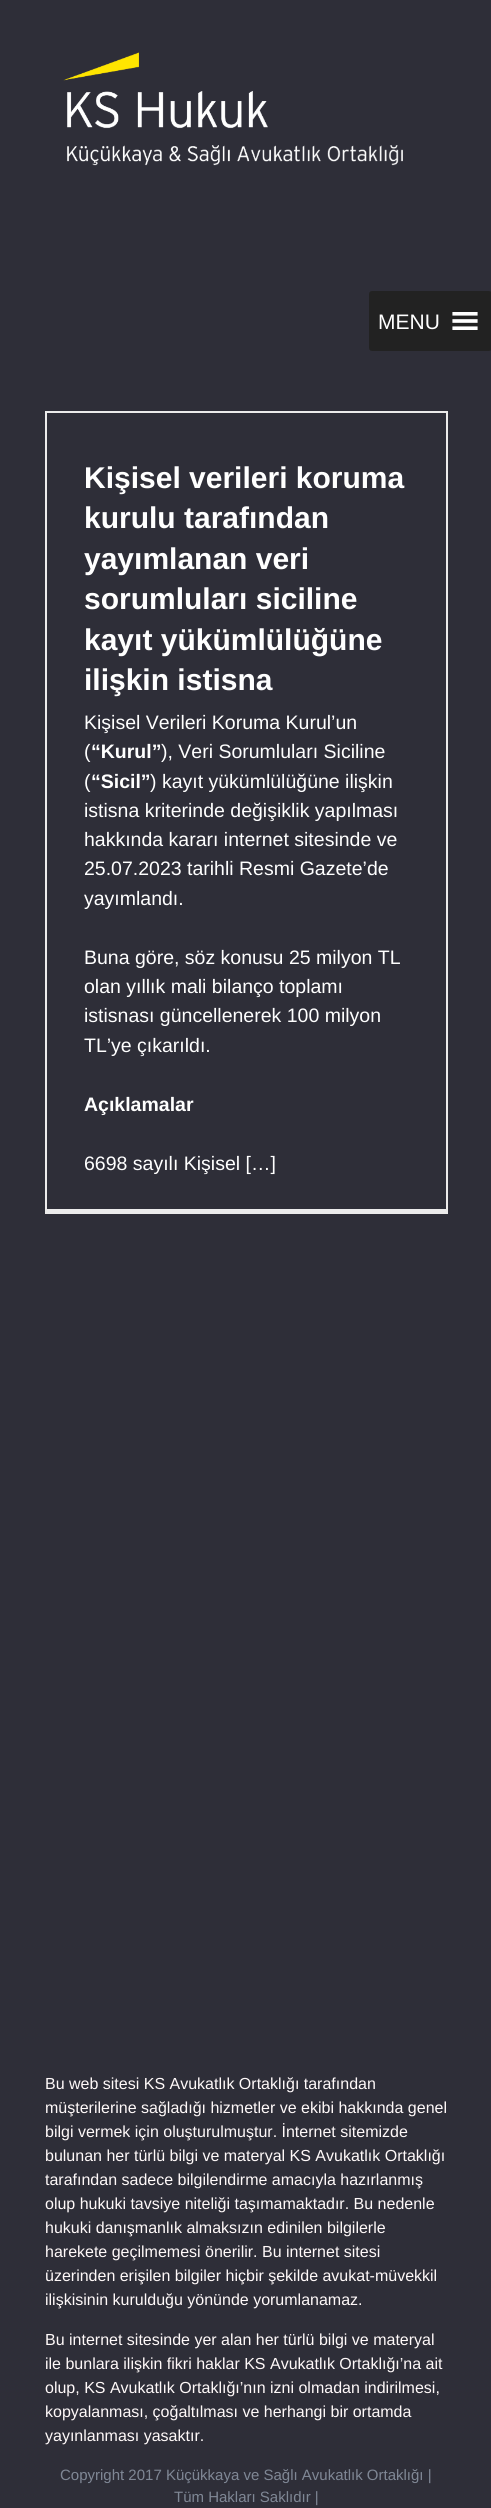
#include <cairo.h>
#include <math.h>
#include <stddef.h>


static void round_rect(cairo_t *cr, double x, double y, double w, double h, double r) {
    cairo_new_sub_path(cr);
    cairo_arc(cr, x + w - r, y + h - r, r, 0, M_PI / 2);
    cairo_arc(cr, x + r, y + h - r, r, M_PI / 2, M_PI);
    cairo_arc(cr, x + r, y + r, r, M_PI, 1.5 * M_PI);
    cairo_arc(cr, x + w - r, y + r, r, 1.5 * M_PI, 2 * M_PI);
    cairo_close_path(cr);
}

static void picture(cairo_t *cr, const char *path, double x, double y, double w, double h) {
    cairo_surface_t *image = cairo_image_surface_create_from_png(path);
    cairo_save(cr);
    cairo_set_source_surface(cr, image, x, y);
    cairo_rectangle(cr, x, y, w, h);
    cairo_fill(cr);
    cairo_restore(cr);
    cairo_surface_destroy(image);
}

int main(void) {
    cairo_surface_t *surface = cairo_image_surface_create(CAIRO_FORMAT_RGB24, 491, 2508);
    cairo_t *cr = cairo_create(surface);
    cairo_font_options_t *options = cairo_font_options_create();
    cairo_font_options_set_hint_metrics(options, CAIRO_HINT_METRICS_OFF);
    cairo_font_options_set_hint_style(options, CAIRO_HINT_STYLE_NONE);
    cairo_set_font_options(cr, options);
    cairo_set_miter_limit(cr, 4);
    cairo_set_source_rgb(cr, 0.18, 0.18, 0.22);
    cairo_paint(cr);
    picture(cr, "img1.png", 63, 52, 340, 114);
    cairo_set_source_rgb(cr, 0.133, 0.133, 0.133);
    round_rect(cr, 369, 291, 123, 60, 3);
    cairo_fill(cr);
    cairo_select_font_face(cr, "Liberation Sans", CAIRO_FONT_SLANT_NORMAL, CAIRO_FONT_WEIGHT_NORMAL);
    cairo_set_font_size(cr, 21);
    cairo_set_source_rgb(cr, 1, 1, 1);
    cairo_move_to(cr, 378, 329);
    cairo_show_text(cr, "MENU");
    picture(cr, "img2.png", 452, 312, 26, 18);
    cairo_set_source_rgb(cr, 0.922, 0.918, 0.918);
    cairo_rectangle(cr, 45, 411, 402, 2);
    cairo_fill(cr);
    cairo_rectangle(cr, 446, 411, 2, 803);
    cairo_fill(cr);
    cairo_rectangle(cr, 45, 1209, 402, 5);
    cairo_fill(cr);
    cairo_rectangle(cr, 45, 411, 2, 803);
    cairo_fill(cr);
    cairo_select_font_face(cr, "Liberation Sans", CAIRO_FONT_SLANT_NORMAL, CAIRO_FONT_WEIGHT_BOLD);
    cairo_set_font_size(cr, 30);
    cairo_set_source_rgb(cr, 1, 1, 1);
    cairo_move_to(cr, 84, 488);
    cairo_show_text(cr, "Kişisel verileri koruma");
    cairo_move_to(cr, 84, 528);
    cairo_show_text(cr, "kurulu tarafından");
    cairo_move_to(cr, 84, 569);
    cairo_show_text(cr, "yayımlanan veri");
    cairo_move_to(cr, 84, 609);
    cairo_show_text(cr, "sorumluları siciline");
    cairo_move_to(cr, 84, 650);
    cairo_show_text(cr, "kayıt yükümlülüğüne");
    cairo_move_to(cr, 84, 690);
    cairo_show_text(cr, "ilişkin istisna");
    cairo_select_font_face(cr, "Liberation Sans", CAIRO_FONT_SLANT_NORMAL, CAIRO_FONT_WEIGHT_NORMAL);
    cairo_set_font_size(cr, 19.5);
    cairo_move_to(cr, 84, 729);
    cairo_show_text(cr, "Kişisel Verileri Koruma Kurul’un");
    cairo_move_to(cr, 84, 758);
    cairo_show_text(cr, "(");
    cairo_select_font_face(cr, "Liberation Sans", CAIRO_FONT_SLANT_NORMAL, CAIRO_FONT_WEIGHT_BOLD);
    cairo_move_to(cr, 91, 758);
    cairo_show_text(cr, "“Kurul”");
    cairo_select_font_face(cr, "Liberation Sans", CAIRO_FONT_SLANT_NORMAL, CAIRO_FONT_WEIGHT_NORMAL);
    cairo_move_to(cr, 161, 758);
    cairo_show_text(cr, "), Veri Sorumluları Siciline");
    cairo_move_to(cr, 84, 788);
    cairo_show_text(cr, "(");
    cairo_select_font_face(cr, "Liberation Sans", CAIRO_FONT_SLANT_NORMAL, CAIRO_FONT_WEIGHT_BOLD);
    cairo_move_to(cr, 91, 788);
    cairo_show_text(cr, "“Sicil”");
    cairo_select_font_face(cr, "Liberation Sans", CAIRO_FONT_SLANT_NORMAL, CAIRO_FONT_WEIGHT_NORMAL);
    cairo_move_to(cr, 150, 788);
    cairo_show_text(cr, ") kayıt yükümlülüğüne ilişkin");
    cairo_move_to(cr, 84, 817);
    cairo_show_text(cr, "istisna kriterinde değişiklik yapılması");
    cairo_move_to(cr, 84, 846);
    cairo_show_text(cr, "hakkında kararı internet sitesinde ve");
    cairo_move_to(cr, 84, 875);
    cairo_show_text(cr, "25.07.2023 tarihli Resmi Gazete’de");
    cairo_move_to(cr, 84, 905);
    cairo_show_text(cr, "yayımlandı.");
    cairo_move_to(cr, 84, 964);
    cairo_show_text(cr, "Buna göre, söz konusu 25 milyon TL");
    cairo_move_to(cr, 84, 993);
    cairo_show_text(cr, "olan yıllık mali bilanço toplamı");
    cairo_move_to(cr, 84, 1022);
    cairo_show_text(cr, "istisnası güncellenerek 100 milyon");
    cairo_move_to(cr, 84, 1052);
    cairo_show_text(cr, "TL’ye çıkarıldı.");
    cairo_select_font_face(cr, "Liberation Sans", CAIRO_FONT_SLANT_NORMAL, CAIRO_FONT_WEIGHT_BOLD);
    cairo_move_to(cr, 84, 1111);
    cairo_show_text(cr, "Açıklamalar");
    cairo_select_font_face(cr, "Liberation Sans", CAIRO_FONT_SLANT_NORMAL, CAIRO_FONT_WEIGHT_NORMAL);
    cairo_move_to(cr, 84, 1170);
    cairo_show_text(cr, "6698 sayılı Kişisel […]");
    cairo_set_font_size(cr, 16);
    cairo_set_source_rgb(cr, 1, 0.976, 0.976);
    cairo_move_to(cr, 45, 2089);
    cairo_show_text(cr, "Bu web sitesi KS Avukatlık Ortaklığı tarafından");
    cairo_move_to(cr, 45, 2113);
    cairo_show_text(cr, "müşterilerine sağladığı hizmetler ve ekibi hakkında genel");
    cairo_move_to(cr, 45, 2137);
    cairo_show_text(cr, "bilgi vermek için oluşturulmuştur. İnternet sitemizde");
    cairo_move_to(cr, 45, 2161);
    cairo_show_text(cr, "bulunan her türlü bilgi ve materyal KS Avukatlık Ortaklığı");
    cairo_move_to(cr, 45, 2185);
    cairo_show_text(cr, "tarafından sadece bilgilendirme amacıyla hazırlanmış");
    cairo_move_to(cr, 45, 2209);
    cairo_show_text(cr, "olup hukuki tavsiye niteliği taşımamaktadır. Bu nedenle");
    cairo_move_to(cr, 45, 2233);
    cairo_show_text(cr, "hukuki danışmanlık almaksızın edinilen bilgilerle");
    cairo_move_to(cr, 45, 2257);
    cairo_show_text(cr, "harekete geçilmemesi önerilir. Bu internet sitesi");
    cairo_move_to(cr, 45, 2281);
    cairo_show_text(cr, "üzerinden erişilen bilgiler hiçbir şekilde avukat-müvekkil");
    cairo_move_to(cr, 45, 2305);
    cairo_show_text(cr, "ilişkisinin kurulduğu yönünde yorumlanamaz.");
    cairo_move_to(cr, 45, 2345);
    cairo_show_text(cr, "Bu internet sitesinde yer alan her türlü bilgi ve materyal");
    cairo_move_to(cr, 45, 2369);
    cairo_show_text(cr, "ile bunlara ilişkin fikri haklar KS Avukatlık Ortaklığı’na ait");
    cairo_move_to(cr, 45, 2393);
    cairo_show_text(cr, "olup, KS Avukatlık Ortaklığı’nın izni olmadan indirilmesi,");
    cairo_move_to(cr, 45, 2417);
    cairo_show_text(cr, "kopyalanması, çoğaltılması ve herhangi bir ortamda");
    cairo_move_to(cr, 45, 2441);
    cairo_show_text(cr, "yayınlanması yasaktır.");
    cairo_set_font_size(cr, 15);
    cairo_set_source_rgb(cr, 0.498, 0.529, 0.584);
    cairo_move_to(cr, 60, 2480);
    cairo_show_text(cr, "Copyright 2017 Küçükkaya ve Sağlı Avukatlık Ortaklığı |");
    cairo_move_to(cr, 174, 2502);
    cairo_show_text(cr, "Tüm Hakları Saklıdır |");
    cairo_surface_write_to_png(surface, "page.png");
    cairo_font_options_destroy(options);
    cairo_destroy(cr);
    cairo_surface_destroy(surface);
    return 0;
}
